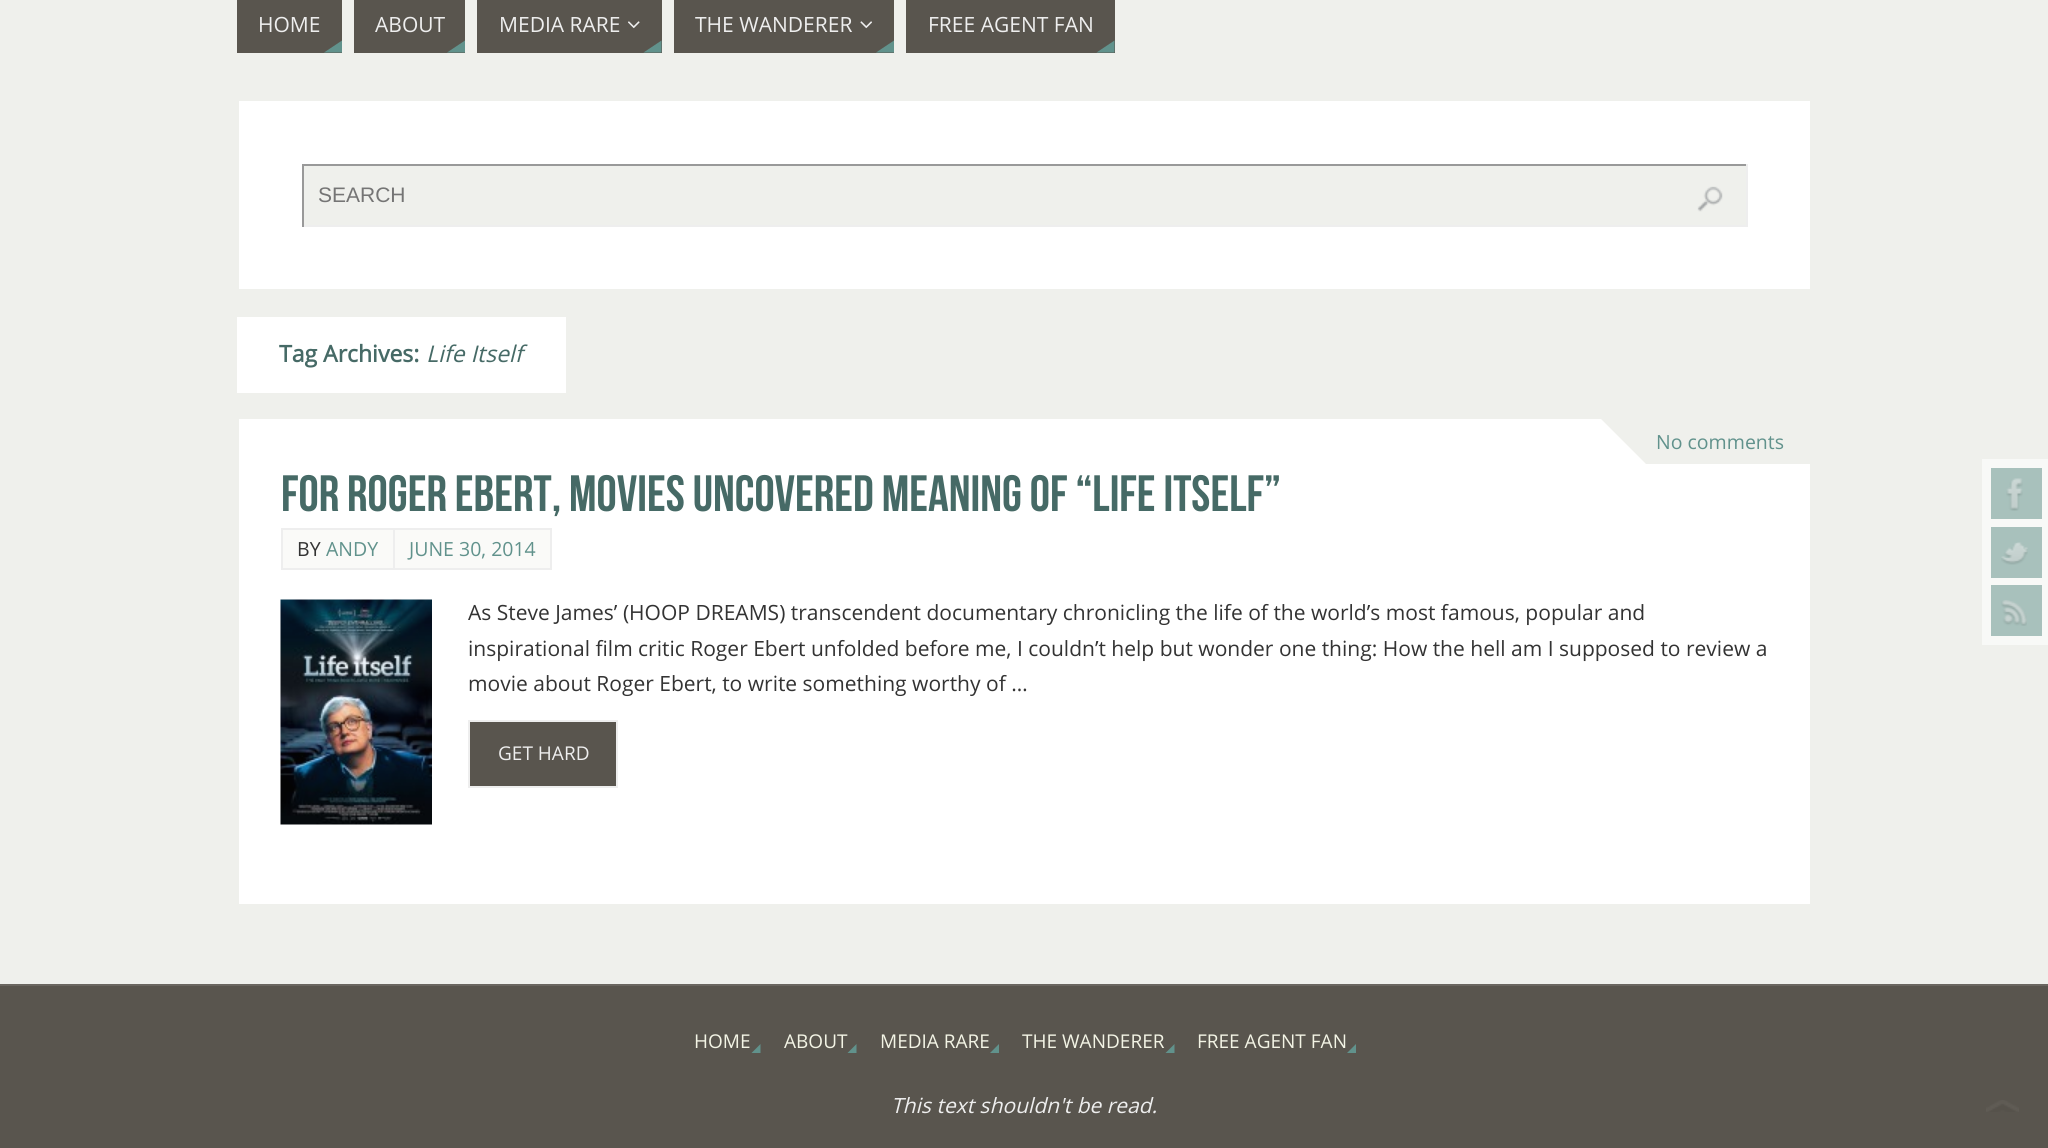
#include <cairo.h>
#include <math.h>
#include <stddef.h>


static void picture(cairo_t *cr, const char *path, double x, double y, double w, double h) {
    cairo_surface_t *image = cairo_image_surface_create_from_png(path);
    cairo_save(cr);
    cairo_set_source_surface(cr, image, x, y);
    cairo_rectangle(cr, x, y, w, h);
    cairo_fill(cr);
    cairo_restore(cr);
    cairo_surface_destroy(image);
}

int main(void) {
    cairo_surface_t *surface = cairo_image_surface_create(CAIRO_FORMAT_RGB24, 2048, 1148);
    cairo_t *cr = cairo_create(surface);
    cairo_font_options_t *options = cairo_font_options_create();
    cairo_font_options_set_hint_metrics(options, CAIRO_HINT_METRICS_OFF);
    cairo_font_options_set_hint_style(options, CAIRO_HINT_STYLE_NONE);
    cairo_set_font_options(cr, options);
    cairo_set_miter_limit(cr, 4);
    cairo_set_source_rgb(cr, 0.937, 0.941, 0.925);
    cairo_paint(cr);
    cairo_set_source_rgb(cr, 0.349, 0.333, 0.306);
    cairo_rectangle(cr, 237, 0, 105, 53);
    cairo_fill(cr);
    cairo_select_font_face(cr, "Open Sans", CAIRO_FONT_SLANT_NORMAL, CAIRO_FONT_WEIGHT_NORMAL);
    cairo_set_font_size(cr, 21);
    cairo_set_source_rgb(cr, 0.933, 0.933, 0.933);
    cairo_move_to(cr, 258, 32);
    cairo_show_text(cr, "HOME");
    cairo_set_source_rgb(cr, 0.38, 0.573, 0.549);
    cairo_new_path(cr);
    cairo_move_to(cr, 342, 52.5);
    cairo_line_to(cr, 324, 52.5);
    cairo_line_to(cr, 342, 40.5);
    cairo_close_path(cr);
    cairo_fill(cr);
    cairo_set_source_rgb(cr, 0.349, 0.333, 0.306);
    cairo_rectangle(cr, 354, 0, 111, 53);
    cairo_fill(cr);
    cairo_set_source_rgb(cr, 0.933, 0.933, 0.933);
    cairo_move_to(cr, 375, 32);
    cairo_show_text(cr, "ABOUT");
    cairo_set_source_rgb(cr, 0.38, 0.573, 0.549);
    cairo_new_path(cr);
    cairo_move_to(cr, 465, 52.5);
    cairo_line_to(cr, 447, 52.5);
    cairo_line_to(cr, 465, 40.5);
    cairo_close_path(cr);
    cairo_fill(cr);
    cairo_set_source_rgb(cr, 0.349, 0.333, 0.306);
    cairo_rectangle(cr, 477, 0, 185, 53);
    cairo_fill(cr);
    cairo_set_source_rgb(cr, 0.933, 0.933, 0.933);
    cairo_move_to(cr, 499, 32);
    cairo_show_text(cr, "MEDIA RARE");
    picture(cr, "img1.png", 628, 21, 12, 8);
    cairo_set_source_rgb(cr, 0.38, 0.573, 0.549);
    cairo_new_path(cr);
    cairo_move_to(cr, 661.5, 52.5);
    cairo_line_to(cr, 643.5, 52.5);
    cairo_line_to(cr, 661.5, 40.5);
    cairo_close_path(cr);
    cairo_fill(cr);
    cairo_set_source_rgb(cr, 0.349, 0.333, 0.306);
    cairo_rectangle(cr, 674, 0, 220, 53);
    cairo_fill(cr);
    cairo_set_source_rgb(cr, 0.933, 0.933, 0.933);
    cairo_move_to(cr, 695, 32);
    cairo_show_text(cr, "THE WANDERER");
    picture(cr, "img2.png", 860, 21, 12, 8);
    cairo_set_source_rgb(cr, 0.38, 0.573, 0.549);
    cairo_new_path(cr);
    cairo_move_to(cr, 894, 52.5);
    cairo_line_to(cr, 876, 52.5);
    cairo_line_to(cr, 894, 40.5);
    cairo_close_path(cr);
    cairo_fill(cr);
    cairo_set_source_rgb(cr, 0.349, 0.333, 0.306);
    cairo_rectangle(cr, 906, 0, 209, 53);
    cairo_fill(cr);
    cairo_set_source_rgb(cr, 0.933, 0.933, 0.933);
    cairo_move_to(cr, 928, 32);
    cairo_show_text(cr, "FREE AGENT FAN");
    cairo_set_source_rgb(cr, 0.38, 0.573, 0.549);
    cairo_new_path(cr);
    cairo_move_to(cr, 1114.5, 52.5);
    cairo_line_to(cr, 1096.5, 52.5);
    cairo_line_to(cr, 1114.5, 40.5);
    cairo_close_path(cr);
    cairo_fill(cr);
    cairo_set_source_rgb(cr, 1, 1, 1);
    cairo_rectangle(cr, 239, 101, 1571, 188);
    cairo_fill(cr);
    cairo_set_source_rgb(cr, 0.937, 0.941, 0.925);
    cairo_rectangle(cr, 304, 166, 1442, 59);
    cairo_fill(cr);
    cairo_set_source_rgb(cr, 0.6, 0.6, 0.6);
    cairo_rectangle(cr, 302, 164, 1446, 2);
    cairo_fill(cr);
    cairo_set_source_rgb(cr, 0.933, 0.933, 0.933);
    cairo_rectangle(cr, 1746, 164, 2, 63);
    cairo_fill(cr);
    cairo_rectangle(cr, 302, 225, 1446, 2);
    cairo_fill(cr);
    cairo_set_source_rgb(cr, 0.6, 0.6, 0.6);
    cairo_rectangle(cr, 302, 164, 2, 63);
    cairo_fill(cr);
    cairo_select_font_face(cr, "Liberation Sans", CAIRO_FONT_SLANT_NORMAL, CAIRO_FONT_WEIGHT_NORMAL);
    cairo_set_source_rgb(cr, 0.459, 0.459, 0.459);
    cairo_move_to(cr, 318, 202);
    cairo_show_text(cr, "SEARCH");
    picture(cr, "img3.png", 1697, 186, 26, 26);
    cairo_set_source_rgb(cr, 1, 1, 1);
    cairo_rectangle(cr, 237, 317, 329, 76);
    cairo_fill(cr);
    cairo_select_font_face(cr, "Open Sans", CAIRO_FONT_SLANT_NORMAL, CAIRO_FONT_WEIGHT_BOLD);
    cairo_set_font_size(cr, 23);
    cairo_set_source_rgb(cr, 0.275, 0.416, 0.4);
    cairo_move_to(cr, 279, 362);
    cairo_show_text(cr, "Tag Archives:");
    cairo_select_font_face(cr, "Open Sans", CAIRO_FONT_SLANT_ITALIC, CAIRO_FONT_WEIGHT_NORMAL);
    cairo_move_to(cr, 426, 362);
    cairo_show_text(cr, "Life Itself");
    cairo_set_source_rgb(cr, 1, 1, 1);
    cairo_rectangle(cr, 239, 419, 1571, 485);
    cairo_fill(cr);
    cairo_set_source_rgb(cr, 0.937, 0.941, 0.925);
    cairo_rectangle(cr, 1646, 419, 164, 45);
    cairo_fill(cr);
    cairo_save(cr);
    cairo_rectangle(cr, 239, 419, 1572, 486);
    cairo_clip(cr);
    cairo_new_path(cr);
    cairo_move_to(cr, 1600, 418);
    cairo_line_to(cr, 1646, 418);
    cairo_line_to(cr, 1646, 464);
    cairo_close_path(cr);
    cairo_fill(cr);
    cairo_restore(cr);
    cairo_select_font_face(cr, "Open Sans", CAIRO_FONT_SLANT_NORMAL, CAIRO_FONT_WEIGHT_NORMAL);
    cairo_set_font_size(cr, 19.5);
    cairo_set_source_rgb(cr, 0.38, 0.573, 0.549);
    cairo_move_to(cr, 1656, 449);
    cairo_show_text(cr, "No comments");
    cairo_select_font_face(cr, "Bebas Neue", CAIRO_FONT_SLANT_NORMAL, CAIRO_FONT_WEIGHT_NORMAL);
    cairo_set_font_size(cr, 51);
    cairo_set_source_rgb(cr, 0.275, 0.416, 0.4);
    cairo_move_to(cr, 281, 511);
    cairo_show_text(cr, "For Roger Ebert, Movies Uncovered Meaning of “Life Itself”");
    cairo_set_source_rgb(cr, 0.98, 0.98, 0.969);
    cairo_rectangle(cr, 282, 529, 112, 40);
    cairo_fill_preserve(cr);
    cairo_set_source_rgb(cr, 0.933, 0.933, 0.933);
    cairo_stroke(cr);
    cairo_select_font_face(cr, "Open Sans", CAIRO_FONT_SLANT_NORMAL, CAIRO_FONT_WEIGHT_NORMAL);
    cairo_set_font_size(cr, 19.5);
    cairo_set_source_rgb(cr, 0.2, 0.2, 0.2);
    cairo_move_to(cr, 297, 556);
    cairo_show_text(cr, "BY");
    cairo_set_source_rgb(cr, 0.38, 0.573, 0.549);
    cairo_move_to(cr, 326, 556);
    cairo_show_text(cr, "ANDY");
    cairo_set_source_rgb(cr, 0.98, 0.98, 0.969);
    cairo_rectangle(cr, 394, 529, 157, 40);
    cairo_fill_preserve(cr);
    cairo_set_source_rgb(cr, 0.933, 0.933, 0.933);
    cairo_stroke(cr);
    cairo_set_source_rgb(cr, 0.38, 0.573, 0.549);
    cairo_move_to(cr, 409, 556);
    cairo_show_text(cr, "JUNE 30, 2014");
    picture(cr, "img4.png", 280, 599, 152, 226);
    cairo_set_font_size(cr, 21);
    cairo_set_source_rgb(cr, 0.2, 0.2, 0.2);
    cairo_move_to(cr, 468, 620);
    cairo_show_text(cr, "As Steve James’ (HOOP DREAMS) transcendent documentary chronicling the life of the world’s most famous, popular and");
    cairo_move_to(cr, 468, 656);
    cairo_show_text(cr, "inspirational film critic Roger Ebert unfolded before me, I couldn’t help but wonder one thing: How the hell am I supposed to review a");
    cairo_move_to(cr, 468, 691);
    cairo_show_text(cr, "movie about Roger Ebert, to write something worthy of …");
    cairo_set_source_rgb(cr, 0.349, 0.333, 0.306);
    cairo_rectangle(cr, 469, 721, 148, 66);
    cairo_fill_preserve(cr);
    cairo_set_source_rgb(cr, 0.933, 0.933, 0.933);
    cairo_stroke(cr);
    cairo_set_font_size(cr, 19);
    cairo_move_to(cr, 498, 760);
    cairo_show_text(cr, "GET HARD");
    cairo_set_source_rgb(cr, 0.969, 0.973, 0.965);
    cairo_rectangle(cr, 1982, 459, 66, 186);
    cairo_fill(cr);
    cairo_set_source_rgb(cr, 0.659, 0.757, 0.737);
    cairo_rectangle(cr, 1991, 468, 51, 51);
    cairo_fill(cr);
    picture(cr, "img5.png", 2006, 478, 17, 33);
    cairo_rectangle(cr, 1991, 527, 51, 51);
    cairo_fill(cr);
    picture(cr, "img6.png", 2001, 542, 27, 23);
    cairo_rectangle(cr, 1991, 585, 51, 51);
    cairo_fill(cr);
    picture(cr, "img7.png", 2001, 600, 26, 26);
    cairo_set_source_rgb(cr, 0.349, 0.333, 0.306);
    cairo_rectangle(cr, 0, 986, 2048, 162);
    cairo_fill(cr);
    cairo_set_source_rgb(cr, 0.416, 0.4, 0.376);
    cairo_rectangle(cr, 0, 984, 2048, 2);
    cairo_fill(cr);
    cairo_set_source_rgb(cr, 0.953, 0.957, 0.898);
    cairo_move_to(cr, 694, 1048);
    cairo_show_text(cr, "HOME");
    cairo_set_source_rgb(cr, 0.38, 0.573, 0.549);
    cairo_new_path(cr);
    cairo_move_to(cr, 760.5, 1053);
    cairo_line_to(cr, 751.5, 1053);
    cairo_line_to(cr, 760.5, 1044);
    cairo_close_path(cr);
    cairo_fill(cr);
    cairo_set_source_rgb(cr, 0.953, 0.957, 0.898);
    cairo_move_to(cr, 784, 1048);
    cairo_show_text(cr, "ABOUT");
    cairo_set_source_rgb(cr, 0.38, 0.573, 0.549);
    cairo_new_path(cr);
    cairo_move_to(cr, 856.5, 1053);
    cairo_line_to(cr, 847.5, 1053);
    cairo_line_to(cr, 856.5, 1044);
    cairo_close_path(cr);
    cairo_fill(cr);
    cairo_set_source_rgb(cr, 0.953, 0.957, 0.898);
    cairo_move_to(cr, 880, 1048);
    cairo_show_text(cr, "MEDIA RARE");
    cairo_set_source_rgb(cr, 0.38, 0.573, 0.549);
    cairo_new_path(cr);
    cairo_move_to(cr, 999, 1053);
    cairo_line_to(cr, 990, 1053);
    cairo_line_to(cr, 999, 1044);
    cairo_close_path(cr);
    cairo_fill(cr);
    cairo_set_source_rgb(cr, 0.953, 0.957, 0.898);
    cairo_move_to(cr, 1022, 1048);
    cairo_show_text(cr, "THE WANDERER");
    cairo_set_source_rgb(cr, 0.38, 0.573, 0.549);
    cairo_new_path(cr);
    cairo_move_to(cr, 1174.5, 1053);
    cairo_line_to(cr, 1165.5, 1053);
    cairo_line_to(cr, 1174.5, 1044);
    cairo_close_path(cr);
    cairo_fill(cr);
    cairo_set_source_rgb(cr, 0.953, 0.957, 0.898);
    cairo_move_to(cr, 1197, 1048);
    cairo_show_text(cr, "FREE AGENT FAN");
    cairo_set_source_rgb(cr, 0.38, 0.573, 0.549);
    cairo_new_path(cr);
    cairo_move_to(cr, 1356, 1053);
    cairo_line_to(cr, 1347, 1053);
    cairo_line_to(cr, 1356, 1044);
    cairo_close_path(cr);
    cairo_fill(cr);
    cairo_select_font_face(cr, "Open Sans", CAIRO_FONT_SLANT_ITALIC, CAIRO_FONT_WEIGHT_NORMAL);
    cairo_set_font_size(cr, 21);
    cairo_set_source_rgb(cr, 0.933, 0.933, 0.933);
    cairo_move_to(cr, 891, 1113);
    cairo_show_text(cr, "This text shouldn't be read.");
    picture(cr, "img8.png", 1986, 1100, 33, 12);
    cairo_surface_write_to_png(surface, "page.png");
    cairo_font_options_destroy(options);
    cairo_destroy(cr);
    cairo_surface_destroy(surface);
    return 0;
}
